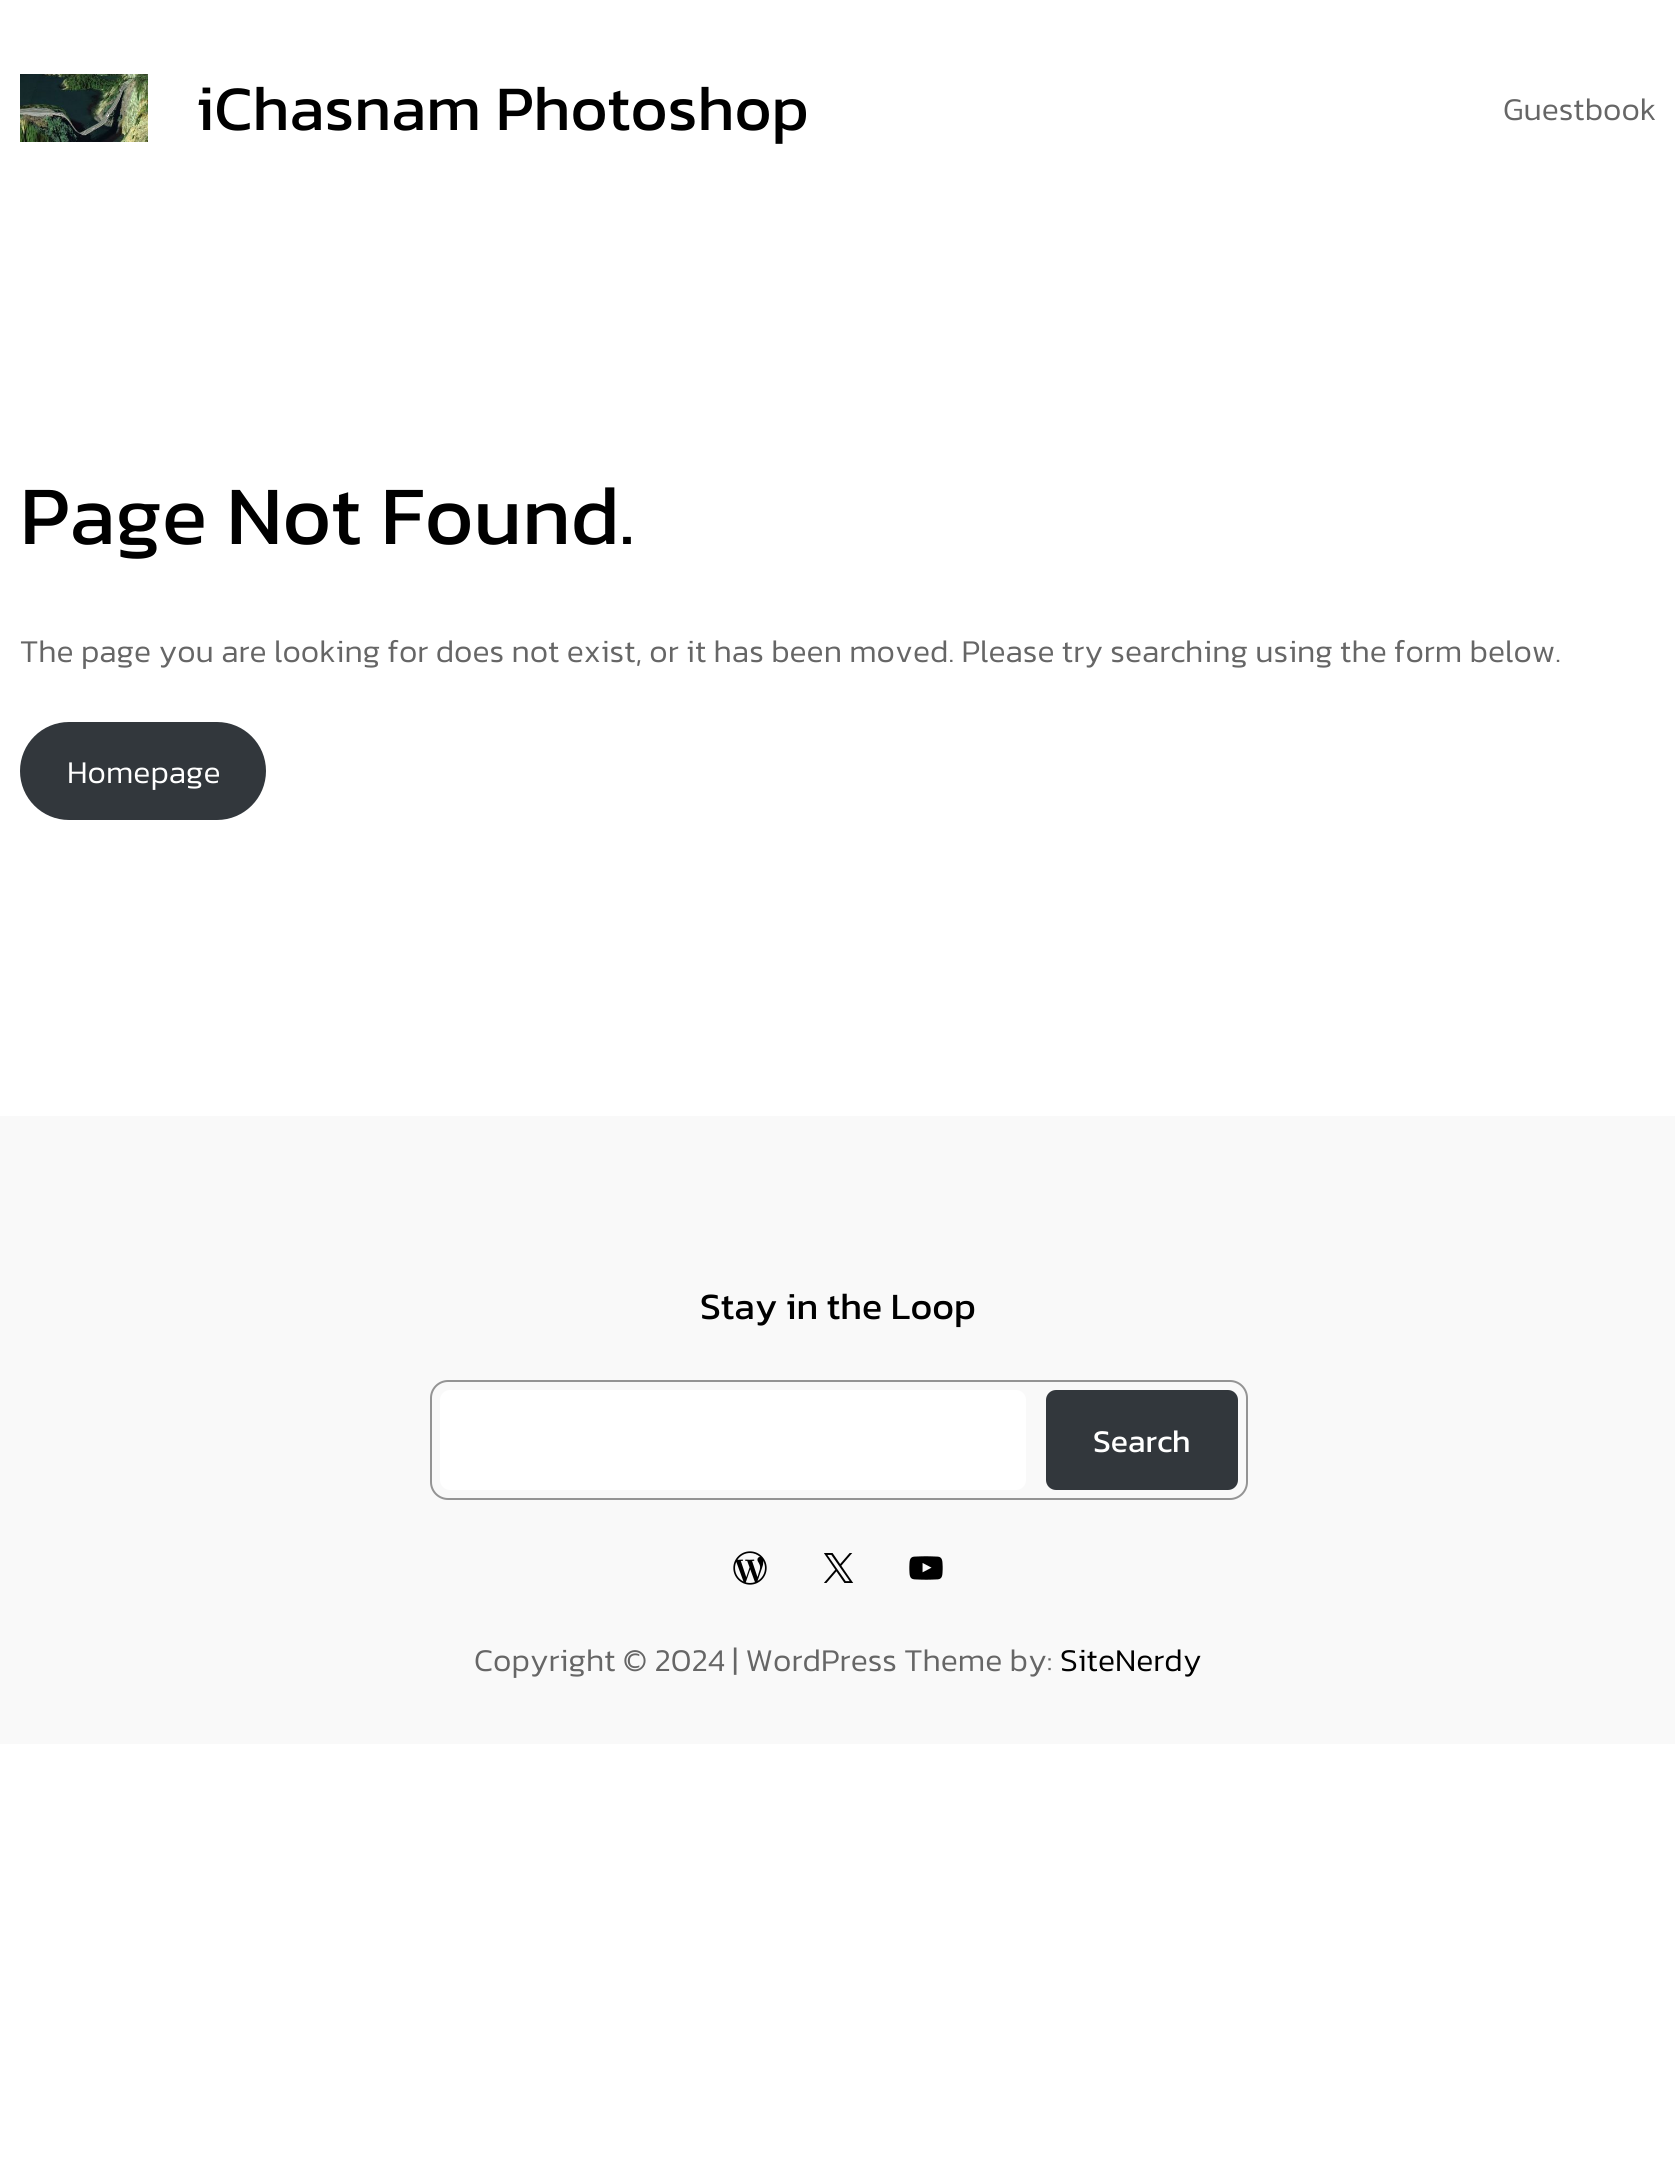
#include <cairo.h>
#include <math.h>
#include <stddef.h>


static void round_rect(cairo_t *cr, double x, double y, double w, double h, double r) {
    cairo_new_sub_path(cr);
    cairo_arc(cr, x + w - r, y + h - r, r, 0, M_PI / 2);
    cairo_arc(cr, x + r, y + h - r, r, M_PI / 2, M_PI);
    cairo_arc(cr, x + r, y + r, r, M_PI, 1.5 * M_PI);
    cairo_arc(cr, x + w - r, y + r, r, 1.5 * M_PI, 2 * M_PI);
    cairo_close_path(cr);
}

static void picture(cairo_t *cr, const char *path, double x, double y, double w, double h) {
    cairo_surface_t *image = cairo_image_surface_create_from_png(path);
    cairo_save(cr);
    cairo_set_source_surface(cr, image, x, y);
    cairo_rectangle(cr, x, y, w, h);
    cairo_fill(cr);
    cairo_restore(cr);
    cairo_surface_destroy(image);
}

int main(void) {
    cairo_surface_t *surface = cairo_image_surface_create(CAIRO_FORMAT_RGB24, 1675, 2181);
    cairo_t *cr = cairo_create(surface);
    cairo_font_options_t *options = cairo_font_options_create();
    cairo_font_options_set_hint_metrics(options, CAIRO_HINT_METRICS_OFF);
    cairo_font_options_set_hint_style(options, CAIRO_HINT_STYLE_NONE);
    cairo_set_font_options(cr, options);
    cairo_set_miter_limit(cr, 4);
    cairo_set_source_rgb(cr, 1, 1, 1);
    cairo_paint(cr);
    picture(cr, "img1.png", 20, 74, 128, 68);
    cairo_select_font_face(cr, "Kanit", CAIRO_FONT_SLANT_NORMAL, CAIRO_FONT_WEIGHT_NORMAL);
    cairo_set_font_size(cr, 64);
    cairo_set_source_rgb(cr, 0, 0, 0);
    cairo_move_to(cr, 196, 130);
    cairo_show_text(cr, "iChasnam Photoshop");
    cairo_select_font_face(cr, "Kanit Light", CAIRO_FONT_SLANT_NORMAL, CAIRO_FONT_WEIGHT_NORMAL);
    cairo_set_font_size(cr, 32);
    cairo_set_source_rgb(cr, 0.4, 0.4, 0.4);
    cairo_move_to(cr, 1503, 120);
    cairo_show_text(cr, "Guestbook");
    cairo_select_font_face(cr, "Kanit", CAIRO_FONT_SLANT_NORMAL, CAIRO_FONT_WEIGHT_NORMAL);
    cairo_set_font_size(cr, 84);
    cairo_set_source_rgb(cr, 0, 0, 0);
    cairo_move_to(cr, 20, 544);
    cairo_show_text(cr, "Page Not Found.");
    cairo_select_font_face(cr, "Kanit Light", CAIRO_FONT_SLANT_NORMAL, CAIRO_FONT_WEIGHT_NORMAL);
    cairo_set_font_size(cr, 32);
    cairo_set_source_rgb(cr, 0.4, 0.4, 0.4);
    cairo_move_to(cr, 20, 662);
    cairo_show_text(cr, "The page you are looking for does not exist, or it has been moved. Please try searching using the form below.");
    cairo_set_source_rgb(cr, 0.196, 0.216, 0.235);
    round_rect(cr, 20, 722, 246, 98, 49);
    cairo_fill(cr);
    cairo_set_source_rgb(cr, 1, 1, 1);
    cairo_move_to(cr, 67, 783);
    cairo_show_text(cr, "Homepage");
    cairo_set_source_rgb(cr, 0.976, 0.976, 0.976);
    cairo_rectangle(cr, 0, 1116, 1675, 628);
    cairo_fill(cr);
    cairo_select_font_face(cr, "Kanit", CAIRO_FONT_SLANT_NORMAL, CAIRO_FONT_WEIGHT_NORMAL);
    cairo_set_font_size(cr, 37.5);
    cairo_set_source_rgb(cr, 0, 0, 0);
    cairo_move_to(cr, 700, 1319);
    cairo_show_text(cr, "Stay in the Loop");
    round_rect(cr, 431, 1381, 816, 118, 17);
    cairo_set_source_rgb(cr, 0.58, 0.58, 0.58);
    cairo_stroke(cr);
    cairo_set_source_rgb(cr, 1, 1, 1);
    round_rect(cr, 440, 1390, 586, 100, 10);
    cairo_fill(cr);
    cairo_set_source_rgb(cr, 0.196, 0.216, 0.235);
    round_rect(cr, 1046, 1390, 192, 100, 10);
    cairo_fill(cr);
    cairo_set_font_size(cr, 32);
    cairo_set_source_rgb(cr, 1, 1, 1);
    cairo_move_to(cr, 1093, 1452);
    cairo_show_text(cr, "Search");
    picture(cr, "img2.png", 733, 1551, 34, 34);
    picture(cr, "img3.png", 824, 1553, 30, 30);
    picture(cr, "img4.png", 909, 1556, 34, 24);
    cairo_select_font_face(cr, "Kanit Light", CAIRO_FONT_SLANT_NORMAL, CAIRO_FONT_WEIGHT_NORMAL);
    cairo_set_source_rgb(cr, 0.4, 0.4, 0.4);
    cairo_move_to(cr, 474, 1671);
    cairo_show_text(cr, "Copyright © 2024 | WordPress Theme by:");
    cairo_set_source_rgb(cr, 0, 0, 0);
    cairo_move_to(cr, 1060, 1671);
    cairo_show_text(cr, "SiteNerdy");
    cairo_surface_write_to_png(surface, "page.png");
    cairo_font_options_destroy(options);
    cairo_destroy(cr);
    cairo_surface_destroy(surface);
    return 0;
}
